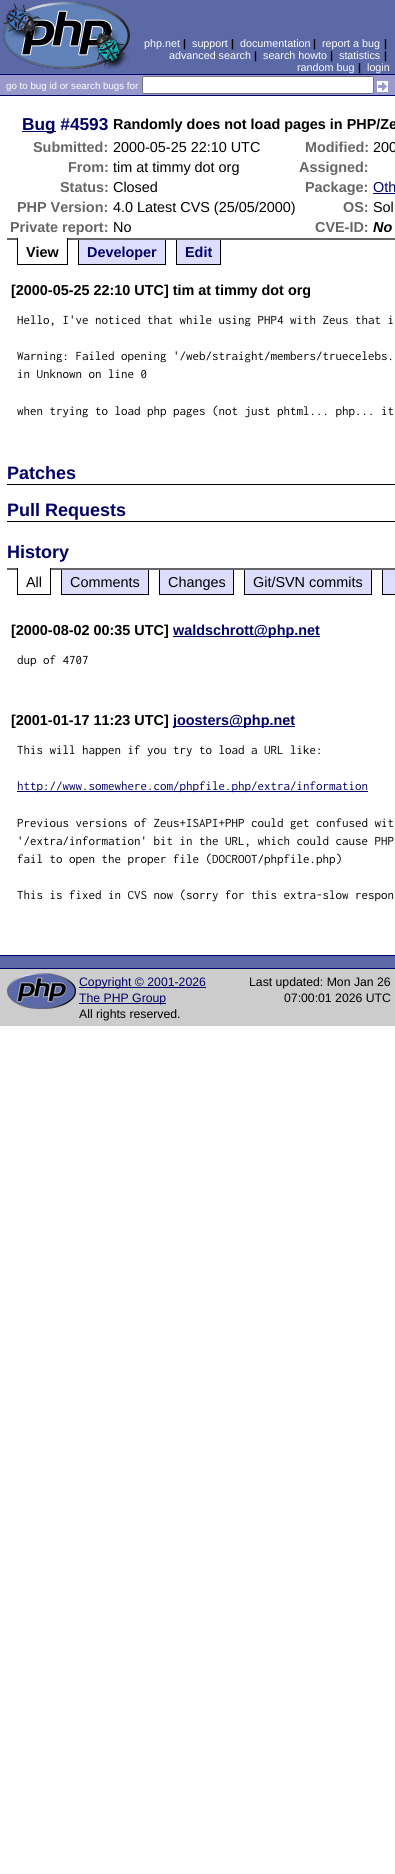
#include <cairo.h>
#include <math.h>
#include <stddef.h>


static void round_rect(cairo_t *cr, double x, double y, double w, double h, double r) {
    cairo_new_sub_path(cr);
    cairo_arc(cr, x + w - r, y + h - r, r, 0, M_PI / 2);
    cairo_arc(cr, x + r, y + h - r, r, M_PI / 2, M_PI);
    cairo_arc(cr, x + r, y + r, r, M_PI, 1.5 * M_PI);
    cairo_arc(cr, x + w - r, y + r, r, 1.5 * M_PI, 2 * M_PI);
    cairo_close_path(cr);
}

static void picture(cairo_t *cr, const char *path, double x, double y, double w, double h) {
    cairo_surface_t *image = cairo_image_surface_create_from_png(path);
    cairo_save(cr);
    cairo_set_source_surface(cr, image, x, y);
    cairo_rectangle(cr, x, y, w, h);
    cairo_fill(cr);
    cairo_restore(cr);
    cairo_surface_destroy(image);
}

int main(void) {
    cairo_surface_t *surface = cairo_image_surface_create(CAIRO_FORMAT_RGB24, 395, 1874);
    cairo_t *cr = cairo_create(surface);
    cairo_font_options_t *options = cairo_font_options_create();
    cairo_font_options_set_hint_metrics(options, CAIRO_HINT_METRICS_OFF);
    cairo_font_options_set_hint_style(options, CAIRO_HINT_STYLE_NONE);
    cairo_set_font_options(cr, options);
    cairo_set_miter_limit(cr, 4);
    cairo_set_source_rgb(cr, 1, 1, 1);
    cairo_paint(cr);
    cairo_set_source_rgb(cr, 0.357, 0.412, 0.651);
    cairo_rectangle(cr, 0, 0, 395, 74);
    cairo_fill(cr);
    picture(cr, "img1.png", 3, 2, 127, 67);
    cairo_select_font_face(cr, "Liberation Sans", CAIRO_FONT_SLANT_NORMAL, CAIRO_FONT_WEIGHT_NORMAL);
    cairo_set_font_size(cr, 10.75);
    cairo_set_source_rgb(cr, 1, 1, 1);
    cairo_move_to(cr, 144, 47);
    cairo_show_text(cr, "php.net");
    cairo_select_font_face(cr, "Liberation Sans", CAIRO_FONT_SLANT_NORMAL, CAIRO_FONT_WEIGHT_BOLD);
    cairo_set_source_rgb(cr, 0, 0, 0);
    cairo_move_to(cr, 183, 47);
    cairo_show_text(cr, "|");
    cairo_select_font_face(cr, "Liberation Sans", CAIRO_FONT_SLANT_NORMAL, CAIRO_FONT_WEIGHT_NORMAL);
    cairo_set_source_rgb(cr, 1, 1, 1);
    cairo_move_to(cr, 192, 47);
    cairo_show_text(cr, "support");
    cairo_select_font_face(cr, "Liberation Sans", CAIRO_FONT_SLANT_NORMAL, CAIRO_FONT_WEIGHT_BOLD);
    cairo_set_source_rgb(cr, 0, 0, 0);
    cairo_move_to(cr, 231, 47);
    cairo_show_text(cr, "|");
    cairo_select_font_face(cr, "Liberation Sans", CAIRO_FONT_SLANT_NORMAL, CAIRO_FONT_WEIGHT_NORMAL);
    cairo_set_source_rgb(cr, 1, 1, 1);
    cairo_move_to(cr, 240, 47);
    cairo_show_text(cr, "documentation");
    cairo_select_font_face(cr, "Liberation Sans", CAIRO_FONT_SLANT_NORMAL, CAIRO_FONT_WEIGHT_BOLD);
    cairo_set_source_rgb(cr, 0, 0, 0);
    cairo_move_to(cr, 313, 47);
    cairo_show_text(cr, "|");
    cairo_select_font_face(cr, "Liberation Sans", CAIRO_FONT_SLANT_NORMAL, CAIRO_FONT_WEIGHT_NORMAL);
    cairo_set_source_rgb(cr, 1, 1, 1);
    cairo_move_to(cr, 322, 47);
    cairo_show_text(cr, "report a bug");
    cairo_select_font_face(cr, "Liberation Sans", CAIRO_FONT_SLANT_NORMAL, CAIRO_FONT_WEIGHT_BOLD);
    cairo_set_source_rgb(cr, 0, 0, 0);
    cairo_move_to(cr, 384, 47);
    cairo_show_text(cr, "|");
    cairo_select_font_face(cr, "Liberation Sans", CAIRO_FONT_SLANT_NORMAL, CAIRO_FONT_WEIGHT_NORMAL);
    cairo_set_source_rgb(cr, 1, 1, 1);
    cairo_move_to(cr, 169, 59);
    cairo_show_text(cr, "advanced search");
    cairo_select_font_face(cr, "Liberation Sans", CAIRO_FONT_SLANT_NORMAL, CAIRO_FONT_WEIGHT_BOLD);
    cairo_set_source_rgb(cr, 0, 0, 0);
    cairo_move_to(cr, 254, 59);
    cairo_show_text(cr, "|");
    cairo_select_font_face(cr, "Liberation Sans", CAIRO_FONT_SLANT_NORMAL, CAIRO_FONT_WEIGHT_NORMAL);
    cairo_set_source_rgb(cr, 1, 1, 1);
    cairo_move_to(cr, 263, 59);
    cairo_show_text(cr, "search howto");
    cairo_select_font_face(cr, "Liberation Sans", CAIRO_FONT_SLANT_NORMAL, CAIRO_FONT_WEIGHT_BOLD);
    cairo_set_source_rgb(cr, 0, 0, 0);
    cairo_move_to(cr, 330, 59);
    cairo_show_text(cr, "|");
    cairo_select_font_face(cr, "Liberation Sans", CAIRO_FONT_SLANT_NORMAL, CAIRO_FONT_WEIGHT_NORMAL);
    cairo_set_source_rgb(cr, 1, 1, 1);
    cairo_move_to(cr, 339, 59);
    cairo_show_text(cr, "statistics");
    cairo_select_font_face(cr, "Liberation Sans", CAIRO_FONT_SLANT_NORMAL, CAIRO_FONT_WEIGHT_BOLD);
    cairo_set_source_rgb(cr, 0, 0, 0);
    cairo_move_to(cr, 384, 59);
    cairo_show_text(cr, "|");
    cairo_select_font_face(cr, "Liberation Sans", CAIRO_FONT_SLANT_NORMAL, CAIRO_FONT_WEIGHT_NORMAL);
    cairo_set_source_rgb(cr, 1, 1, 1);
    cairo_move_to(cr, 297, 71);
    cairo_show_text(cr, "random bug");
    cairo_select_font_face(cr, "Liberation Sans", CAIRO_FONT_SLANT_NORMAL, CAIRO_FONT_WEIGHT_BOLD);
    cairo_set_source_rgb(cr, 0, 0, 0);
    cairo_move_to(cr, 358, 71);
    cairo_show_text(cr, "|");
    cairo_select_font_face(cr, "Liberation Sans", CAIRO_FONT_SLANT_NORMAL, CAIRO_FONT_WEIGHT_NORMAL);
    cairo_set_source_rgb(cr, 1, 1, 1);
    cairo_move_to(cr, 367, 71);
    cairo_show_text(cr, "login");
    cairo_set_source_rgb(cr, 0.6, 0.6, 0.8);
    cairo_rectangle(cr, 0, 75, 395, 20);
    cairo_fill(cr);
    cairo_set_source_rgb(cr, 0, 0, 0.4);
    cairo_rectangle(cr, 0, 74, 395, 1);
    cairo_fill(cr);
    cairo_rectangle(cr, 0, 95, 395, 1);
    cairo_fill(cr);
    cairo_set_font_size(cr, 9.75);
    cairo_set_source_rgb(cr, 1, 1, 1);
    cairo_move_to(cr, 6, 89);
    cairo_show_text(cr, "go to bug id or search bugs for");
    round_rect(cr, 142.5, 76.5, 231, 17, 1.5);
    cairo_fill_preserve(cr);
    cairo_set_source_rgb(cr, 0.463, 0.463, 0.463);
    cairo_set_line_width(cr, 1);
    cairo_stroke(cr);
    picture(cr, "img2.png", 377, 81, 11, 11);
    cairo_set_source_rgb(cr, 0.4, 0.4, 0.4);
    cairo_rectangle(cr, 7, 238, 388, 2);
    cairo_fill(cr);
    cairo_set_source_rgb(cr, 0, 0, 0.4);
    cairo_rectangle(cr, 22, 131, 34, 1);
    cairo_fill(cr);
    cairo_select_font_face(cr, "Liberation Sans", CAIRO_FONT_SLANT_NORMAL, CAIRO_FONT_WEIGHT_BOLD);
    cairo_set_font_size(cr, 17.25);
    cairo_move_to(cr, 22, 130);
    cairo_show_text(cr, "Bug #4593");
    cairo_set_font_size(cr, 14.4);
    cairo_set_source_rgb(cr, 0, 0, 0);
    cairo_move_to(cr, 113, 129);
    cairo_show_text(cr, "Randomly does not load pages in PHP/Ze");
    cairo_set_source_rgb(cr, 0.4, 0.4, 0.4);
    cairo_move_to(cr, 33, 152);
    cairo_show_text(cr, "Submitted:");
    cairo_select_font_face(cr, "Liberation Sans", CAIRO_FONT_SLANT_NORMAL, CAIRO_FONT_WEIGHT_NORMAL);
    cairo_set_source_rgb(cr, 0, 0, 0);
    cairo_move_to(cr, 113, 152);
    cairo_show_text(cr, "2000-05-25 22:10 UTC");
    cairo_select_font_face(cr, "Liberation Sans", CAIRO_FONT_SLANT_NORMAL, CAIRO_FONT_WEIGHT_BOLD);
    cairo_set_source_rgb(cr, 0.4, 0.4, 0.4);
    cairo_move_to(cr, 305, 152);
    cairo_show_text(cr, "Modified:");
    cairo_select_font_face(cr, "Liberation Sans", CAIRO_FONT_SLANT_NORMAL, CAIRO_FONT_WEIGHT_NORMAL);
    cairo_set_source_rgb(cr, 0, 0, 0);
    cairo_move_to(cr, 373, 152);
    cairo_show_text(cr, "200");
    cairo_select_font_face(cr, "Liberation Sans", CAIRO_FONT_SLANT_NORMAL, CAIRO_FONT_WEIGHT_BOLD);
    cairo_set_source_rgb(cr, 0.4, 0.4, 0.4);
    cairo_move_to(cr, 68, 172);
    cairo_show_text(cr, "From:");
    cairo_select_font_face(cr, "Liberation Sans", CAIRO_FONT_SLANT_NORMAL, CAIRO_FONT_WEIGHT_NORMAL);
    cairo_set_source_rgb(cr, 0, 0, 0);
    cairo_move_to(cr, 113, 172);
    cairo_show_text(cr, "tim at timmy dot org");
    cairo_select_font_face(cr, "Liberation Sans", CAIRO_FONT_SLANT_NORMAL, CAIRO_FONT_WEIGHT_BOLD);
    cairo_set_source_rgb(cr, 0.4, 0.4, 0.4);
    cairo_move_to(cr, 299, 172);
    cairo_show_text(cr, "Assigned:");
    cairo_move_to(cr, 60, 192);
    cairo_show_text(cr, "Status:");
    cairo_select_font_face(cr, "Liberation Sans", CAIRO_FONT_SLANT_NORMAL, CAIRO_FONT_WEIGHT_NORMAL);
    cairo_set_source_rgb(cr, 0, 0, 0);
    cairo_move_to(cr, 113, 192);
    cairo_show_text(cr, "Closed");
    cairo_select_font_face(cr, "Liberation Sans", CAIRO_FONT_SLANT_NORMAL, CAIRO_FONT_WEIGHT_BOLD);
    cairo_set_source_rgb(cr, 0.4, 0.4, 0.4);
    cairo_move_to(cr, 305, 192);
    cairo_show_text(cr, "Package:");
    cairo_select_font_face(cr, "Liberation Sans", CAIRO_FONT_SLANT_NORMAL, CAIRO_FONT_WEIGHT_NORMAL);
    cairo_set_source_rgb(cr, 0, 0, 0.4);
    cairo_move_to(cr, 373, 192);
    cairo_show_text(cr, "Oth");
    cairo_rectangle(cr, 373, 193, 22, 1);
    cairo_fill(cr);
    cairo_select_font_face(cr, "Liberation Sans", CAIRO_FONT_SLANT_NORMAL, CAIRO_FONT_WEIGHT_BOLD);
    cairo_set_source_rgb(cr, 0.4, 0.4, 0.4);
    cairo_move_to(cr, 17, 212);
    cairo_show_text(cr, "PHP Version:");
    cairo_select_font_face(cr, "Liberation Sans", CAIRO_FONT_SLANT_NORMAL, CAIRO_FONT_WEIGHT_NORMAL);
    cairo_set_source_rgb(cr, 0, 0, 0);
    cairo_move_to(cr, 113, 212);
    cairo_show_text(cr, "4.0 Latest CVS (25/05/2000)");
    cairo_select_font_face(cr, "Liberation Sans", CAIRO_FONT_SLANT_NORMAL, CAIRO_FONT_WEIGHT_BOLD);
    cairo_set_source_rgb(cr, 0.4, 0.4, 0.4);
    cairo_move_to(cr, 343, 212);
    cairo_show_text(cr, "OS:");
    cairo_select_font_face(cr, "Liberation Sans", CAIRO_FONT_SLANT_NORMAL, CAIRO_FONT_WEIGHT_NORMAL);
    cairo_set_source_rgb(cr, 0, 0, 0);
    cairo_move_to(cr, 373, 212);
    cairo_show_text(cr, "Sol");
    cairo_select_font_face(cr, "Liberation Sans", CAIRO_FONT_SLANT_NORMAL, CAIRO_FONT_WEIGHT_BOLD);
    cairo_set_source_rgb(cr, 0.4, 0.4, 0.4);
    cairo_move_to(cr, 10, 232);
    cairo_show_text(cr, "Private report:");
    cairo_select_font_face(cr, "Liberation Sans", CAIRO_FONT_SLANT_NORMAL, CAIRO_FONT_WEIGHT_NORMAL);
    cairo_set_source_rgb(cr, 0, 0, 0);
    cairo_move_to(cr, 113, 232);
    cairo_show_text(cr, "No");
    cairo_select_font_face(cr, "Liberation Sans", CAIRO_FONT_SLANT_NORMAL, CAIRO_FONT_WEIGHT_BOLD);
    cairo_set_source_rgb(cr, 0.4, 0.4, 0.4);
    cairo_move_to(cr, 315, 232);
    cairo_show_text(cr, "CVE-ID:");
    cairo_select_font_face(cr, "Liberation Sans", CAIRO_FONT_SLANT_ITALIC, CAIRO_FONT_WEIGHT_BOLD);
    cairo_set_source_rgb(cr, 0, 0, 0);
    cairo_move_to(cr, 373, 232);
    cairo_show_text(cr, "No");
    cairo_set_source_rgb(cr, 1, 1, 1);
    cairo_rectangle(cr, 18, 238, 49, 2);
    cairo_fill(cr);
    cairo_set_source_rgb(cr, 0, 0, 0);
    cairo_rectangle(cr, 67, 238, 1, 27);
    cairo_fill(cr);
    cairo_rectangle(cr, 17, 264, 51, 1);
    cairo_fill(cr);
    cairo_rectangle(cr, 17, 238, 1, 27);
    cairo_fill(cr);
    cairo_select_font_face(cr, "Liberation Sans", CAIRO_FONT_SLANT_NORMAL, CAIRO_FONT_WEIGHT_BOLD);
    cairo_move_to(cr, 26, 257);
    cairo_show_text(cr, "View");
    cairo_set_source_rgb(cr, 0.867, 0.867, 1);
    cairo_rectangle(cr, 79, 240, 86, 24);
    cairo_fill(cr);
    cairo_set_source_rgb(cr, 0, 0, 0);
    cairo_rectangle(cr, 165, 240, 1, 25);
    cairo_fill(cr);
    cairo_rectangle(cr, 78, 264, 88, 1);
    cairo_fill(cr);
    cairo_rectangle(cr, 78, 240, 1, 25);
    cairo_fill(cr);
    cairo_set_source_rgb(cr, 0, 0, 0.4);
    cairo_move_to(cr, 87, 257);
    cairo_show_text(cr, "Developer");
    cairo_set_source_rgb(cr, 0.867, 0.867, 1);
    cairo_rectangle(cr, 177, 240, 43, 24);
    cairo_fill(cr);
    cairo_set_source_rgb(cr, 0, 0, 0);
    cairo_rectangle(cr, 220, 240, 1, 25);
    cairo_fill(cr);
    cairo_rectangle(cr, 176, 264, 45, 1);
    cairo_fill(cr);
    cairo_rectangle(cr, 176, 240, 1, 25);
    cairo_fill(cr);
    cairo_set_source_rgb(cr, 0, 0, 0.4);
    cairo_move_to(cr, 185, 257);
    cairo_show_text(cr, "Edit");
    cairo_set_source_rgb(cr, 0, 0, 0);
    cairo_move_to(cr, 11, 295);
    cairo_show_text(cr, "[2000-05-25 22:10 UTC] tim at timmy dot org");
    cairo_select_font_face(cr, "Inconsolata", CAIRO_FONT_SLANT_NORMAL, CAIRO_FONT_WEIGHT_NORMAL);
    cairo_set_font_size(cr, 13);
    cairo_move_to(cr, 17, 324);
    cairo_show_text(cr, "Hello, I've noticed that while using PHP4 with Zeus that i");
    cairo_move_to(cr, 17, 360);
    cairo_show_text(cr, "Warning: Failed opening '/web/straight/members/truecelebs.");
    cairo_move_to(cr, 17, 378);
    cairo_show_text(cr, "in Unknown on line 0");
    cairo_move_to(cr, 17, 415);
    cairo_show_text(cr, "when trying to load php pages (not just phtml... php... it");
    cairo_rectangle(cr, 7, 484, 388, 1);
    cairo_fill(cr);
    cairo_select_font_face(cr, "Liberation Sans", CAIRO_FONT_SLANT_NORMAL, CAIRO_FONT_WEIGHT_BOLD);
    cairo_set_font_size(cr, 18);
    cairo_set_source_rgb(cr, 0, 0, 0.4);
    cairo_move_to(cr, 7, 479);
    cairo_show_text(cr, "Patches");
    cairo_set_source_rgb(cr, 0, 0, 0);
    cairo_rectangle(cr, 7, 521, 388, 1);
    cairo_fill(cr);
    cairo_set_source_rgb(cr, 0, 0, 0.4);
    cairo_move_to(cr, 7, 516);
    cairo_show_text(cr, "Pull Requests");
    cairo_set_source_rgb(cr, 0.4, 0.4, 0.4);
    cairo_rectangle(cr, 7, 568, 388, 2);
    cairo_fill(cr);
    cairo_set_source_rgb(cr, 0, 0, 0.4);
    cairo_move_to(cr, 7, 558);
    cairo_show_text(cr, "History");
    cairo_set_source_rgb(cr, 1, 1, 1);
    cairo_rectangle(cr, 18, 568, 32, 2);
    cairo_fill(cr);
    cairo_set_source_rgb(cr, 0, 0, 0);
    cairo_rectangle(cr, 50, 568, 1, 27);
    cairo_fill(cr);
    cairo_rectangle(cr, 17, 594, 34, 1);
    cairo_fill(cr);
    cairo_rectangle(cr, 17, 568, 1, 27);
    cairo_fill(cr);
    cairo_select_font_face(cr, "Liberation Sans", CAIRO_FONT_SLANT_NORMAL, CAIRO_FONT_WEIGHT_NORMAL);
    cairo_set_font_size(cr, 14.4);
    cairo_move_to(cr, 26, 587);
    cairo_show_text(cr, "All");
    cairo_set_source_rgb(cr, 0.867, 0.867, 1);
    cairo_rectangle(cr, 62, 570, 86, 24);
    cairo_fill(cr);
    cairo_set_source_rgb(cr, 0, 0, 0);
    cairo_rectangle(cr, 148, 570, 1, 25);
    cairo_fill(cr);
    cairo_rectangle(cr, 61, 594, 88, 1);
    cairo_fill(cr);
    cairo_rectangle(cr, 61, 570, 1, 25);
    cairo_fill(cr);
    cairo_move_to(cr, 70, 587);
    cairo_show_text(cr, "Comments");
    cairo_set_source_rgb(cr, 0.867, 0.867, 1);
    cairo_rectangle(cr, 160, 570, 73, 24);
    cairo_fill(cr);
    cairo_set_source_rgb(cr, 0, 0, 0);
    cairo_rectangle(cr, 233, 570, 1, 25);
    cairo_fill(cr);
    cairo_rectangle(cr, 159, 594, 75, 1);
    cairo_fill(cr);
    cairo_rectangle(cr, 159, 570, 1, 25);
    cairo_fill(cr);
    cairo_move_to(cr, 168, 587);
    cairo_show_text(cr, "Changes");
    cairo_set_source_rgb(cr, 0.867, 0.867, 1);
    cairo_rectangle(cr, 245, 570, 126, 24);
    cairo_fill(cr);
    cairo_set_source_rgb(cr, 0, 0, 0);
    cairo_rectangle(cr, 371, 570, 1, 25);
    cairo_fill(cr);
    cairo_rectangle(cr, 244, 594, 128, 1);
    cairo_fill(cr);
    cairo_rectangle(cr, 244, 570, 1, 25);
    cairo_fill(cr);
    cairo_move_to(cr, 253, 587);
    cairo_show_text(cr, "Git/SVN commits");
    cairo_set_source_rgb(cr, 0.867, 0.867, 1);
    cairo_rectangle(cr, 383, 570, 12, 24);
    cairo_fill(cr);
    cairo_set_source_rgb(cr, 0, 0, 0);
    cairo_rectangle(cr, 382, 594, 13, 1);
    cairo_fill(cr);
    cairo_rectangle(cr, 382, 570, 1, 25);
    cairo_fill(cr);
    cairo_select_font_face(cr, "Liberation Sans", CAIRO_FONT_SLANT_NORMAL, CAIRO_FONT_WEIGHT_BOLD);
    cairo_move_to(cr, 11, 635);
    cairo_show_text(cr, "[2000-08-02 00:35 UTC]");
    cairo_set_source_rgb(cr, 0, 0, 0.4);
    cairo_rectangle(cr, 173, 636, 147, 1);
    cairo_fill(cr);
    cairo_move_to(cr, 173, 635);
    cairo_show_text(cr, "waldschrott@php.net");
    cairo_select_font_face(cr, "Inconsolata", CAIRO_FONT_SLANT_NORMAL, CAIRO_FONT_WEIGHT_NORMAL);
    cairo_set_font_size(cr, 13);
    cairo_set_source_rgb(cr, 0, 0, 0);
    cairo_move_to(cr, 17, 664);
    cairo_show_text(cr, "dup of 4707");
    cairo_select_font_face(cr, "Liberation Sans", CAIRO_FONT_SLANT_NORMAL, CAIRO_FONT_WEIGHT_BOLD);
    cairo_set_font_size(cr, 14.4);
    cairo_move_to(cr, 11, 725);
    cairo_show_text(cr, "[2001-01-17 11:23 UTC]");
    cairo_set_source_rgb(cr, 0, 0, 0.4);
    cairo_rectangle(cr, 173, 726, 122, 1);
    cairo_fill(cr);
    cairo_move_to(cr, 173, 725);
    cairo_show_text(cr, "joosters@php.net");
    cairo_select_font_face(cr, "Inconsolata", CAIRO_FONT_SLANT_NORMAL, CAIRO_FONT_WEIGHT_NORMAL);
    cairo_set_font_size(cr, 13);
    cairo_set_source_rgb(cr, 0, 0, 0);
    cairo_move_to(cr, 17, 754);
    cairo_show_text(cr, "This will happen if you try to load a URL like:");
    cairo_set_source_rgb(cr, 0, 0, 0.4);
    cairo_rectangle(cr, 17, 791, 351, 1);
    cairo_fill(cr);
    cairo_move_to(cr, 17, 790);
    cairo_show_text(cr, "http://www.somewhere.com/phpfile.php/extra/information");
    cairo_set_source_rgb(cr, 0, 0, 0);
    cairo_move_to(cr, 17, 827);
    cairo_show_text(cr, "Previous versions of Zeus+ISAPI+PHP could get confused wit");
    cairo_move_to(cr, 17, 845);
    cairo_show_text(cr, "'/extra/information' bit in the URL, which could cause PHP");
    cairo_move_to(cr, 17, 863);
    cairo_show_text(cr, "fail to open the proper file (DOCROOT/phpfile.php)");
    cairo_move_to(cr, 17, 899);
    cairo_show_text(cr, "This is fixed in CVS now (sorry for this extra-slow respon");
    cairo_set_source_rgb(cr, 0.357, 0.412, 0.651);
    cairo_rectangle(cr, 0, 956, 395, 12);
    cairo_fill(cr);
    cairo_set_source_rgb(cr, 0, 0, 0.4);
    cairo_rectangle(cr, 0, 955, 395, 1);
    cairo_fill(cr);
    cairo_rectangle(cr, 0, 968, 395, 1);
    cairo_fill(cr);
    cairo_set_source_rgb(cr, 0.8, 0.8, 0.8);
    cairo_rectangle(cr, 0, 969, 395, 57);
    cairo_fill(cr);
    picture(cr, "img3.png", 7, 973, 69, 36);
    cairo_set_source_rgb(cr, 0, 0, 0.4);
    cairo_rectangle(cr, 79, 987, 127, 1);
    cairo_fill(cr);
    cairo_select_font_face(cr, "Liberation Sans", CAIRO_FONT_SLANT_NORMAL, CAIRO_FONT_WEIGHT_NORMAL);
    cairo_set_font_size(cr, 12.25);
    cairo_move_to(cr, 79, 986);
    cairo_show_text(cr, "Copyright © 2001-2026");
    cairo_rectangle(cr, 79, 1003, 87, 1);
    cairo_fill(cr);
    cairo_move_to(cr, 79, 1002);
    cairo_show_text(cr, "The PHP Group");
    cairo_set_source_rgb(cr, 0, 0, 0);
    cairo_move_to(cr, 79, 1018);
    cairo_show_text(cr, "All rights reserved.");
    cairo_move_to(cr, 249, 986);
    cairo_show_text(cr, "Last updated: Mon Jan 26");
    cairo_move_to(cr, 284, 1002);
    cairo_show_text(cr, "07:00:01 2026 UTC");
    cairo_surface_write_to_png(surface, "page.png");
    cairo_font_options_destroy(options);
    cairo_destroy(cr);
    cairo_surface_destroy(surface);
    return 0;
}
